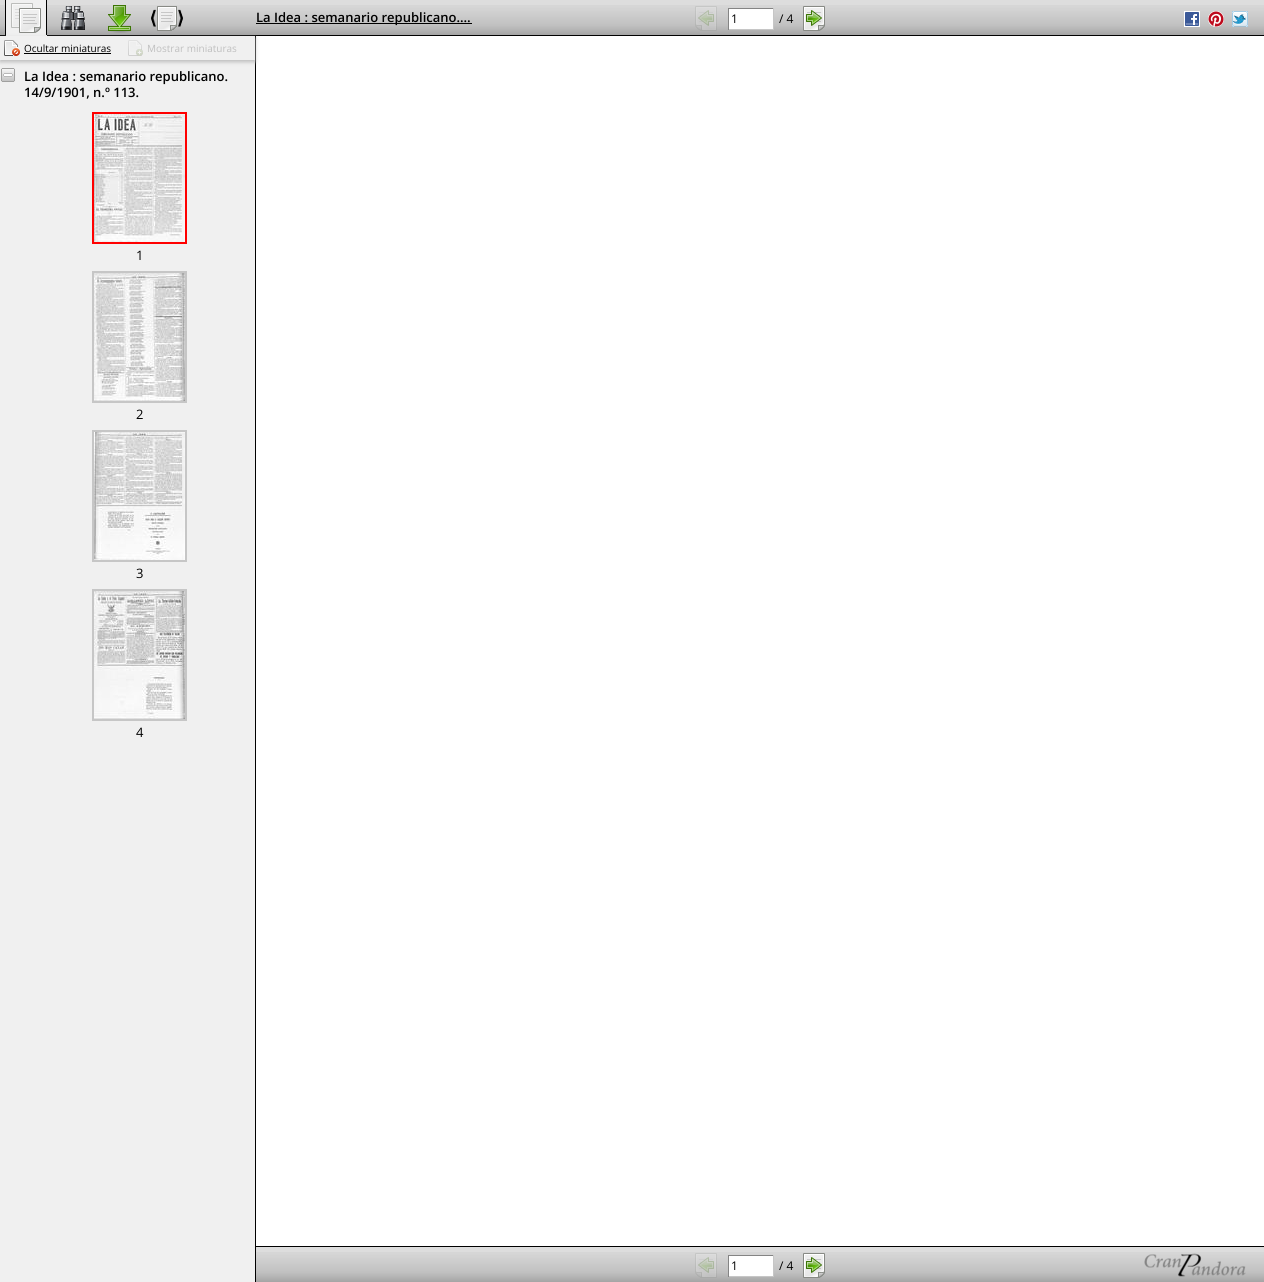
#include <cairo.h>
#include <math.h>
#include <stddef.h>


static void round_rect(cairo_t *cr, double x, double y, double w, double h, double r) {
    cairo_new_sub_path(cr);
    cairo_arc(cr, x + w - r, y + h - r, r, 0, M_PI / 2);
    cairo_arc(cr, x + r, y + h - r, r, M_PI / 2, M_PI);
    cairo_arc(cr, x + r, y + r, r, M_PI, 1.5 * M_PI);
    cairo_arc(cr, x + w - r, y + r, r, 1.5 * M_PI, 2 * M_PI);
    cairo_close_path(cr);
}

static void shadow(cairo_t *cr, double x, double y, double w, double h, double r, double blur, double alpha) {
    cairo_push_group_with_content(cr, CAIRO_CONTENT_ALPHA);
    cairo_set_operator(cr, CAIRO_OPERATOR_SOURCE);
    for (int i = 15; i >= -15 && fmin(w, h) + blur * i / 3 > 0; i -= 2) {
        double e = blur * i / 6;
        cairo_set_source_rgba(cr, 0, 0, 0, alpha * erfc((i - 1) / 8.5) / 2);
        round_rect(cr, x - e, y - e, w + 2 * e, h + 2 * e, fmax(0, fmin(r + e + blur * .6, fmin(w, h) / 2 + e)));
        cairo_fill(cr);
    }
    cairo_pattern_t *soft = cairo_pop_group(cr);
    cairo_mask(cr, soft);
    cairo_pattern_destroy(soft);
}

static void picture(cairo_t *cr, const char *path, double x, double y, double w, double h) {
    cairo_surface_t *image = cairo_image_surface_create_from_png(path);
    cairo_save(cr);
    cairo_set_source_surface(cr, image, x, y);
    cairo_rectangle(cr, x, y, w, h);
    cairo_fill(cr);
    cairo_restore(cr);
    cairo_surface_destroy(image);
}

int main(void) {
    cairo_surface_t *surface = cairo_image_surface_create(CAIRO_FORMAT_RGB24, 1264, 1282);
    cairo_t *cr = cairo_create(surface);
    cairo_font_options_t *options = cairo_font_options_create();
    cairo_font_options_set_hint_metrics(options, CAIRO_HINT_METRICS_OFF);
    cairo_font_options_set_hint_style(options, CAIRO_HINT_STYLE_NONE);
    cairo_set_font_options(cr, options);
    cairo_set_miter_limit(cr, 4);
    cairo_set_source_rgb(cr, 1, 1, 1);
    cairo_paint(cr);
    cairo_set_source_rgb(cr, 0.867, 0.867, 0.867);
    cairo_rectangle(cr, 0, 0, 1264, 35);
    cairo_fill(cr);
    picture(cr, "img1.png", 0, 5, 256, 30);
    cairo_set_source_rgb(cr, 0, 0, 0);
    cairo_rectangle(cr, 0, 35, 1264, 1);
    cairo_fill(cr);
    cairo_set_source_rgb(cr, 0.941, 0.941, 0.941);
    cairo_rectangle(cr, 6, 0, 40, 35);
    cairo_fill(cr);
    cairo_set_source_rgb(cr, 0, 0, 0);
    cairo_rectangle(cr, 46, 0, 1, 36);
    cairo_fill(cr);
    cairo_set_source_rgb(cr, 0.941, 0.941, 0.941);
    cairo_rectangle(cr, 5, 35, 42, 1);
    cairo_fill(cr);
    cairo_set_source_rgb(cr, 0, 0, 0);
    cairo_rectangle(cr, 5, 0, 1, 36);
    cairo_fill(cr);
    picture(cr, "img2.png", 11, 3, 30, 30);
    picture(cr, "img3.png", 61, 6, 24, 24);
    picture(cr, "img4.png", 108, 5, 24, 28);
    picture(cr, "img5.png", 151, 6, 32, 25);
    picture(cr, "img6.png", 256, 5, 1008, 30);
    cairo_rectangle(cr, 256, 23, 216, 1);
    cairo_fill(cr);
    cairo_select_font_face(cr, "Open Sans SemiBold", CAIRO_FONT_SLANT_NORMAL, CAIRO_FONT_WEIGHT_NORMAL);
    cairo_set_font_size(cr, 13);
    cairo_move_to(cr, 256, 22);
    cairo_show_text(cr, "La Idea : semanario republicano.…");
    picture(cr, "img7.png", 695, 6, 22, 25);
    cairo_set_source_rgb(cr, 1, 1, 1);
    cairo_rectangle(cr, 729, 9, 44, 20);
    cairo_fill(cr);
    cairo_set_source_rgb(cr, 0.518, 0.518, 0.518);
    cairo_rectangle(cr, 728, 8, 46, 1);
    cairo_fill(cr);
    cairo_set_source_rgb(cr, 0.776, 0.776, 0.776);
    cairo_rectangle(cr, 773, 8, 1, 22);
    cairo_fill(cr);
    cairo_rectangle(cr, 728, 29, 46, 1);
    cairo_fill(cr);
    cairo_set_source_rgb(cr, 0.518, 0.518, 0.518);
    cairo_rectangle(cr, 728, 8, 1, 22);
    cairo_fill(cr);
    cairo_select_font_face(cr, "Open Sans", CAIRO_FONT_SLANT_NORMAL, CAIRO_FONT_WEIGHT_NORMAL);
    cairo_set_font_size(cr, 12);
    cairo_set_source_rgb(cr, 0, 0, 0);
    cairo_move_to(cr, 731, 23);
    cairo_show_text(cr, "1");
    cairo_move_to(cr, 779, 23);
    cairo_show_text(cr, "/ 4");
    picture(cr, "img8.png", 803, 6, 22, 25);
    picture(cr, "img9.png", 1184, 11, 16, 16);
    picture(cr, "img10.png", 1208, 11, 16, 16);
    picture(cr, "img11.png", 1232, 11, 16, 16);
    cairo_set_source_rgb(cr, 0.941, 0.941, 0.941);
    cairo_rectangle(cr, 0, 36, 255, 1246);
    cairo_fill(cr);
    cairo_set_source_rgb(cr, 0, 0, 0);
    cairo_rectangle(cr, 255, 36, 1, 1246);
    cairo_fill(cr);
    picture(cr, "img14.png", 1, 68, 14, 14);
    cairo_save(cr);
    cairo_set_fill_rule(cr, CAIRO_FILL_RULE_EVEN_ODD);
    cairo_new_path(cr);
    cairo_move_to(cr, 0, 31);
    cairo_line_to(cr, 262, 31);
    cairo_line_to(cr, 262, 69);
    cairo_line_to(cr, 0, 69);
    cairo_close_path(cr);
    cairo_move_to(cr, 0, 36);
    cairo_line_to(cr, 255, 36);
    cairo_line_to(cr, 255, 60);
    cairo_line_to(cr, 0, 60);
    cairo_close_path(cr);
    cairo_clip(cr);
    cairo_set_source_rgb(cr, 0.733, 0.733, 0.733);
    shadow(cr, 0, 38, 255, 24, 0, 2, 1);
    cairo_restore(cr);
    picture(cr, "img12.png", 4, 40, 16, 16);
    cairo_set_font_size(cr, 10);
    cairo_move_to(cr, 24, 52);
    cairo_show_text(cr, "Ocultar miniaturas");
    cairo_rectangle(cr, 24, 53, 87, 1);
    cairo_fill(cr);
    picture(cr, "img13.png", 128, 40, 15, 16);
    cairo_set_source_rgb(cr, 0.753, 0.753, 0.753);
    cairo_move_to(cr, 147, 52);
    cairo_show_text(cr, "Mostrar miniaturas");
    cairo_select_font_face(cr, "Open Sans SemiBold", CAIRO_FONT_SLANT_NORMAL, CAIRO_FONT_WEIGHT_NORMAL);
    cairo_set_font_size(cr, 13);
    cairo_set_source_rgb(cr, 0, 0, 0);
    cairo_move_to(cr, 24, 81);
    cairo_show_text(cr, "La Idea : semanario republicano.");
    cairo_move_to(cr, 24, 97);
    cairo_show_text(cr, "14/9/1901, n.º 113.");
    cairo_rectangle(cr, 93, 113, 93, 130);
    cairo_set_source_rgb(cr, 1, 0, 0);
    cairo_stroke(cr);
    picture(cr, "img15.png", 94, 114, 91, 128);
    cairo_select_font_face(cr, "Open Sans", CAIRO_FONT_SLANT_NORMAL, CAIRO_FONT_WEIGHT_NORMAL);
    cairo_set_source_rgb(cr, 0, 0, 0);
    cairo_move_to(cr, 136, 260);
    cairo_show_text(cr, "1");
    cairo_rectangle(cr, 93, 272, 93, 130);
    cairo_set_source_rgb(cr, 0.776, 0.776, 0.776);
    cairo_stroke(cr);
    picture(cr, "img16.png", 94, 273, 91, 128);
    cairo_set_source_rgb(cr, 0, 0, 0);
    cairo_move_to(cr, 136, 419);
    cairo_show_text(cr, "2");
    cairo_rectangle(cr, 93, 431, 93, 130);
    cairo_set_source_rgb(cr, 0.776, 0.776, 0.776);
    cairo_stroke(cr);
    picture(cr, "img17.png", 94, 432, 91, 128);
    cairo_set_source_rgb(cr, 0, 0, 0);
    cairo_move_to(cr, 136, 578);
    cairo_show_text(cr, "3");
    cairo_rectangle(cr, 93, 590, 93, 130);
    cairo_set_source_rgb(cr, 0.776, 0.776, 0.776);
    cairo_stroke(cr);
    picture(cr, "img18.png", 94, 591, 91, 128);
    cairo_set_source_rgb(cr, 0, 0, 0);
    cairo_move_to(cr, 136, 737);
    cairo_show_text(cr, "4");
    cairo_set_source_rgb(cr, 0.867, 0.867, 0.867);
    cairo_rectangle(cr, 256, 1247, 1008, 35);
    cairo_fill(cr);
    picture(cr, "img6.png", 256, 1252, 1008, 30);
    cairo_set_source_rgb(cr, 0, 0, 0);
    cairo_rectangle(cr, 256, 1246, 1008, 1);
    cairo_fill(cr);
    picture(cr, "img7.png", 695, 1253, 22, 25);
    cairo_set_source_rgb(cr, 1, 1, 1);
    cairo_rectangle(cr, 729, 1256, 44, 20);
    cairo_fill(cr);
    cairo_set_source_rgb(cr, 0.518, 0.518, 0.518);
    cairo_rectangle(cr, 728, 1255, 46, 1);
    cairo_fill(cr);
    cairo_set_source_rgb(cr, 0.776, 0.776, 0.776);
    cairo_rectangle(cr, 773, 1255, 1, 22);
    cairo_fill(cr);
    cairo_rectangle(cr, 728, 1276, 46, 1);
    cairo_fill(cr);
    cairo_set_source_rgb(cr, 0.518, 0.518, 0.518);
    cairo_rectangle(cr, 728, 1255, 1, 22);
    cairo_fill(cr);
    cairo_set_font_size(cr, 12);
    cairo_set_source_rgb(cr, 0, 0, 0);
    cairo_move_to(cr, 731, 1270);
    cairo_show_text(cr, "1");
    cairo_move_to(cr, 779, 1270);
    cairo_show_text(cr, "/ 4");
    picture(cr, "img8.png", 803, 1253, 22, 25);
    picture(cr, "img19.png", 1144, 1253, 102, 24);
    cairo_surface_write_to_png(surface, "page.png");
    cairo_font_options_destroy(options);
    cairo_destroy(cr);
    cairo_surface_destroy(surface);
    return 0;
}
